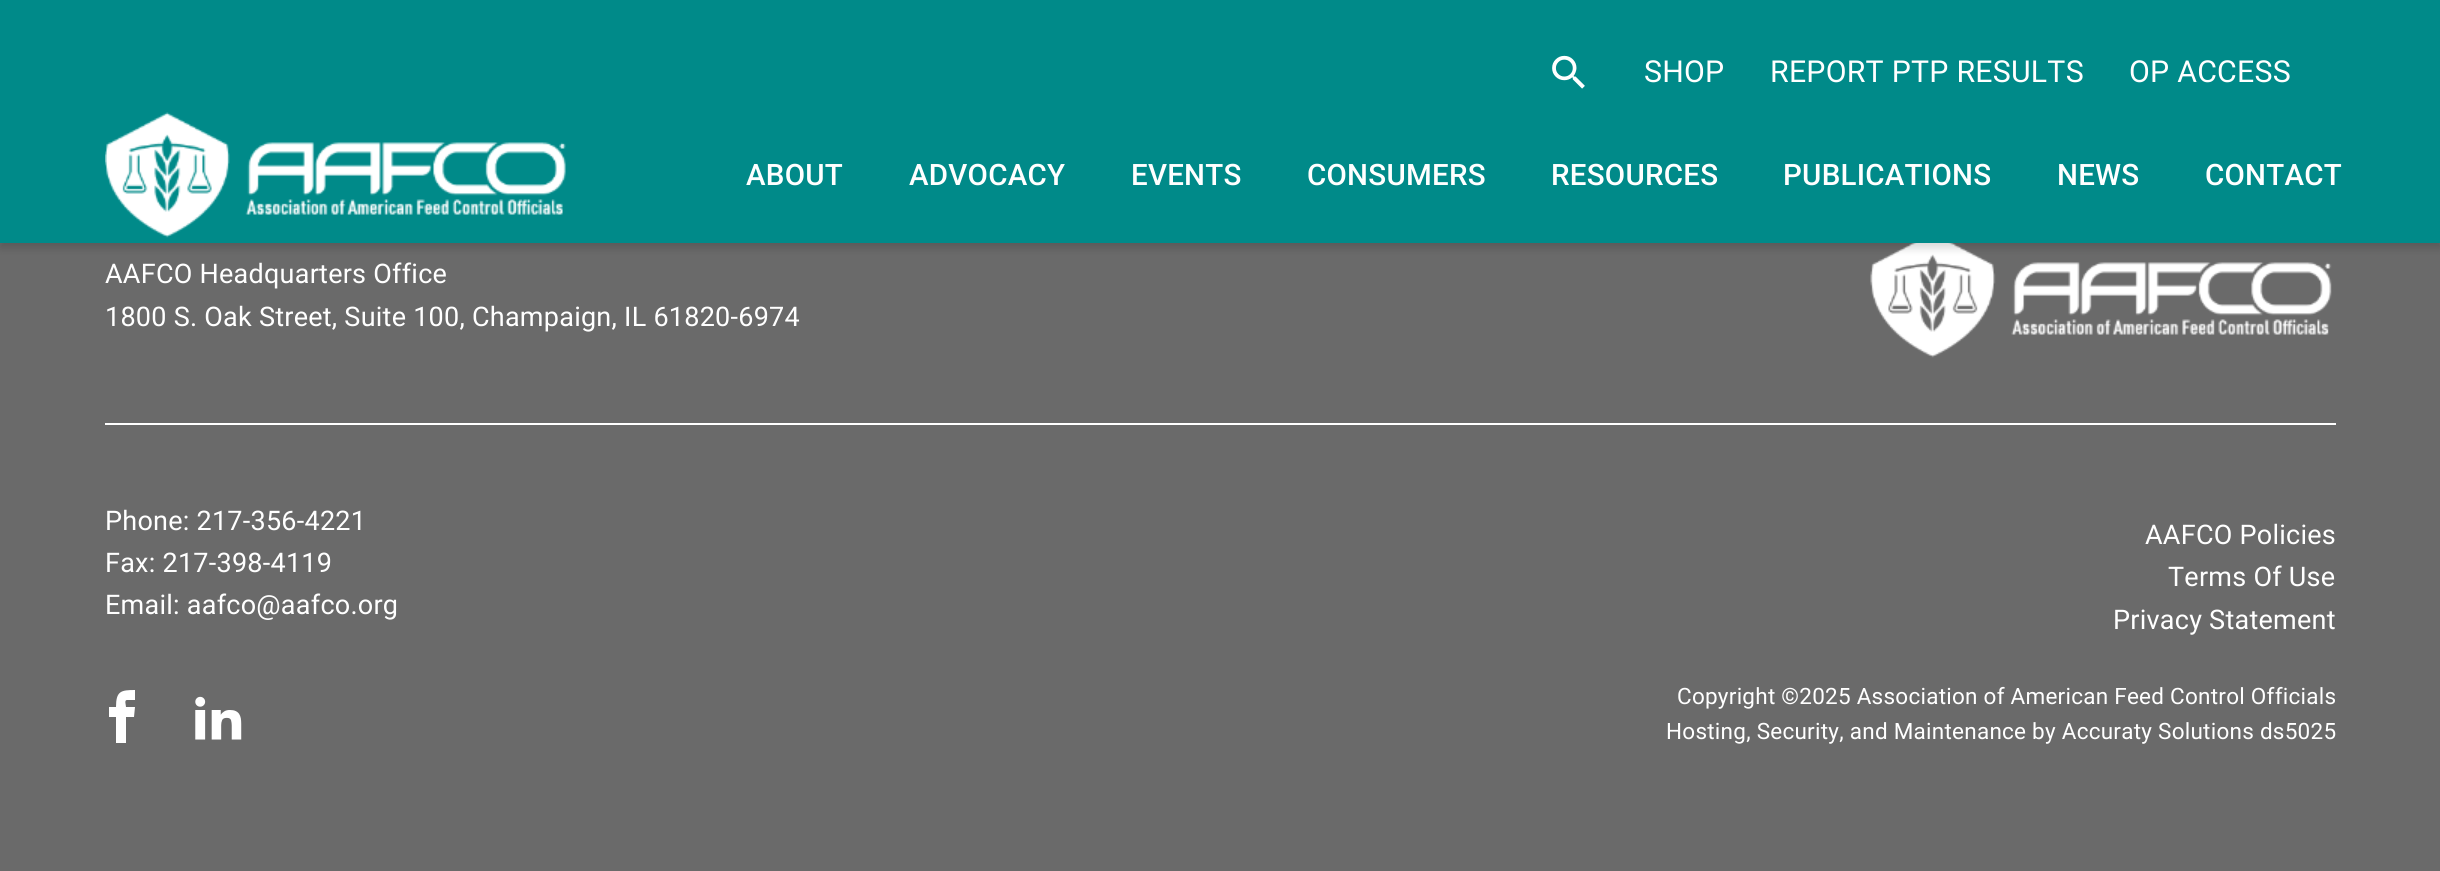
#include <cairo.h>
#include <math.h>
#include <stddef.h>


static void spaced_text(cairo_t *cr, double x, double y, const char *s, double letter, double word) {
    cairo_move_to(cr, x, y);
    while (*s) {
        char ch[5] = {0};
        int n = 0;
        do ch[n++] = *s++; while ((*s & 0xC0) == 0x80);
        cairo_show_text(cr, ch);
        cairo_rel_move_to(cr, letter + word * (*ch == ' '), 0);
    }
}

static void round_rect(cairo_t *cr, double x, double y, double w, double h, double r) {
    cairo_new_sub_path(cr);
    cairo_arc(cr, x + w - r, y + h - r, r, 0, M_PI / 2);
    cairo_arc(cr, x + r, y + h - r, r, M_PI / 2, M_PI);
    cairo_arc(cr, x + r, y + r, r, M_PI, 1.5 * M_PI);
    cairo_arc(cr, x + w - r, y + r, r, 1.5 * M_PI, 2 * M_PI);
    cairo_close_path(cr);
}

static void shadow(cairo_t *cr, double x, double y, double w, double h, double r, double blur, double alpha) {
    cairo_push_group_with_content(cr, CAIRO_CONTENT_ALPHA);
    cairo_set_operator(cr, CAIRO_OPERATOR_SOURCE);
    for (int i = 15; i >= -15 && fmin(w, h) + blur * i / 3 > 0; i -= 2) {
        double e = blur * i / 6;
        cairo_set_source_rgba(cr, 0, 0, 0, alpha * erfc((i - 1) / 8.5) / 2);
        round_rect(cr, x - e, y - e, w + 2 * e, h + 2 * e, fmax(0, fmin(r + e + blur * .6, fmin(w, h) / 2 + e)));
        cairo_fill(cr);
    }
    cairo_pattern_t *soft = cairo_pop_group(cr);
    cairo_mask(cr, soft);
    cairo_pattern_destroy(soft);
}

static void picture(cairo_t *cr, const char *path, double x, double y, double w, double h) {
    cairo_surface_t *image = cairo_image_surface_create_from_png(path);
    cairo_save(cr);
    cairo_set_source_surface(cr, image, x, y);
    cairo_rectangle(cr, x, y, w, h);
    cairo_fill(cr);
    cairo_restore(cr);
    cairo_surface_destroy(image);
}

int main(void) {
    cairo_surface_t *surface = cairo_image_surface_create(CAIRO_FORMAT_RGB24, 2440, 871);
    cairo_t *cr = cairo_create(surface);
    cairo_font_options_t *options = cairo_font_options_create();
    cairo_font_options_set_hint_metrics(options, CAIRO_HINT_METRICS_OFF);
    cairo_font_options_set_hint_style(options, CAIRO_HINT_STYLE_NONE);
    cairo_set_font_options(cr, options);
    cairo_set_miter_limit(cr, 4);
    cairo_set_source_rgb(cr, 0.416, 0.416, 0.416);
    cairo_paint(cr);
    picture(cr, "img3.png", 1870, 243, 462, 115);
    cairo_set_source_rgb(cr, 0, 0, 0);
    shadow(cr, 0, 5, 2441, 243, 0, 4.5, 0.16);
    cairo_set_source_rgb(cr, 0, 0.541, 0.537);
    cairo_rectangle(cr, 0, 0, 2440, 243);
    cairo_fill(cr);
    picture(cr, "img1.png", 1552, 55, 33, 34);
    cairo_select_font_face(cr, "Roboto", CAIRO_FONT_SLANT_NORMAL, CAIRO_FONT_WEIGHT_NORMAL);
    cairo_set_font_size(cr, 30.25);
    cairo_set_source_rgb(cr, 1, 1, 1);
    spaced_text(cr, 1644, 82, "SHOP", 0.25, 0);
    spaced_text(cr, 1770, 82, "REPORT PTP RESULTS", 0.25, 0);
    spaced_text(cr, 2129, 82, "OP ACCESS", 0.25, 0);
    picture(cr, "img2.png", 105, 112, 461, 126);
    cairo_select_font_face(cr, "Roboto Medium", CAIRO_FONT_SLANT_NORMAL, CAIRO_FONT_WEIGHT_NORMAL);
    cairo_set_font_size(cr, 29.5);
    spaced_text(cr, 746, 185, "ABOUT", 0.25, 0);
    spaced_text(cr, 909, 185, "ADVOCACY", 0.25, 0);
    spaced_text(cr, 1131, 185, "EVENTS", 0.25, 0);
    spaced_text(cr, 1307, 185, "CONSUMERS", 0.25, 0);
    spaced_text(cr, 1551, 185, "RESOURCES", 0.25, 0);
    spaced_text(cr, 1783, 185, "PUBLICATIONS", 0.25, 0);
    spaced_text(cr, 2057, 185, "NEWS", 0.25, 0);
    spaced_text(cr, 2205, 185, "CONTACT", 0.25, 0);
    cairo_select_font_face(cr, "Roboto", CAIRO_FONT_SLANT_NORMAL, CAIRO_FONT_WEIGHT_NORMAL);
    cairo_set_font_size(cr, 27);
    spaced_text(cr, 105, 283, "AAFCO Headquarters Office", 0.25, 0);
    spaced_text(cr, 105, 326, "1800 S. Oak Street, Suite 100, Champaign, IL 61820-6974", 0.25, 0);
    cairo_rectangle(cr, 105, 423, 2231, 2);
    cairo_fill(cr);
    spaced_text(cr, 105, 530, "Phone: 217-356-4221", 0.25, 0);
    spaced_text(cr, 105, 572, "Fax: 217-398-4119", 0.25, 0);
    spaced_text(cr, 105, 614, "Email: aafco@aafco.org", 0.25, 0);
    cairo_new_path(cr);
    cairo_move_to(cr, 127, 700);
    cairo_line_to(cr, 135, 700);
    cairo_line_to(cr, 135, 690);
    cairo_curve_to(cr, 121, 690, 116, 691, 116, 707);
    cairo_line_to(cr, 109, 707);
    cairo_line_to(cr, 109, 717);
    cairo_line_to(cr, 116, 717);
    cairo_line_to(cr, 116, 743);
    cairo_line_to(cr, 126, 743);
    cairo_line_to(cr, 126, 717);
    cairo_line_to(cr, 134, 717);
    cairo_line_to(cr, 135, 707);
    cairo_line_to(cr, 126, 707);
    cairo_curve_to(cr, 126, 705, 124, 700, 127, 700);
    cairo_close_path(cr);
    cairo_fill(cr);
    picture(cr, "img4.png", 195, 696, 47, 44);
    spaced_text(cr, 2145, 544, "AAFCO Policies", 0.25, 0);
    spaced_text(cr, 2168, 586, "Terms Of Use", 0.25, 0);
    spaced_text(cr, 2113, 629, "Privacy Statement", 0.25, 0);
    cairo_set_font_size(cr, 22.5);
    spaced_text(cr, 1677, 704, "Copyright ©2025 Association of American Feed Control Officials", 0.25, 0);
    spaced_text(cr, 1666, 739, "Hosting, Security, and Maintenance by Accuraty Solutions ds5025", 0.25, 0);
    cairo_surface_write_to_png(surface, "page.png");
    cairo_font_options_destroy(options);
    cairo_destroy(cr);
    cairo_surface_destroy(surface);
    return 0;
}
